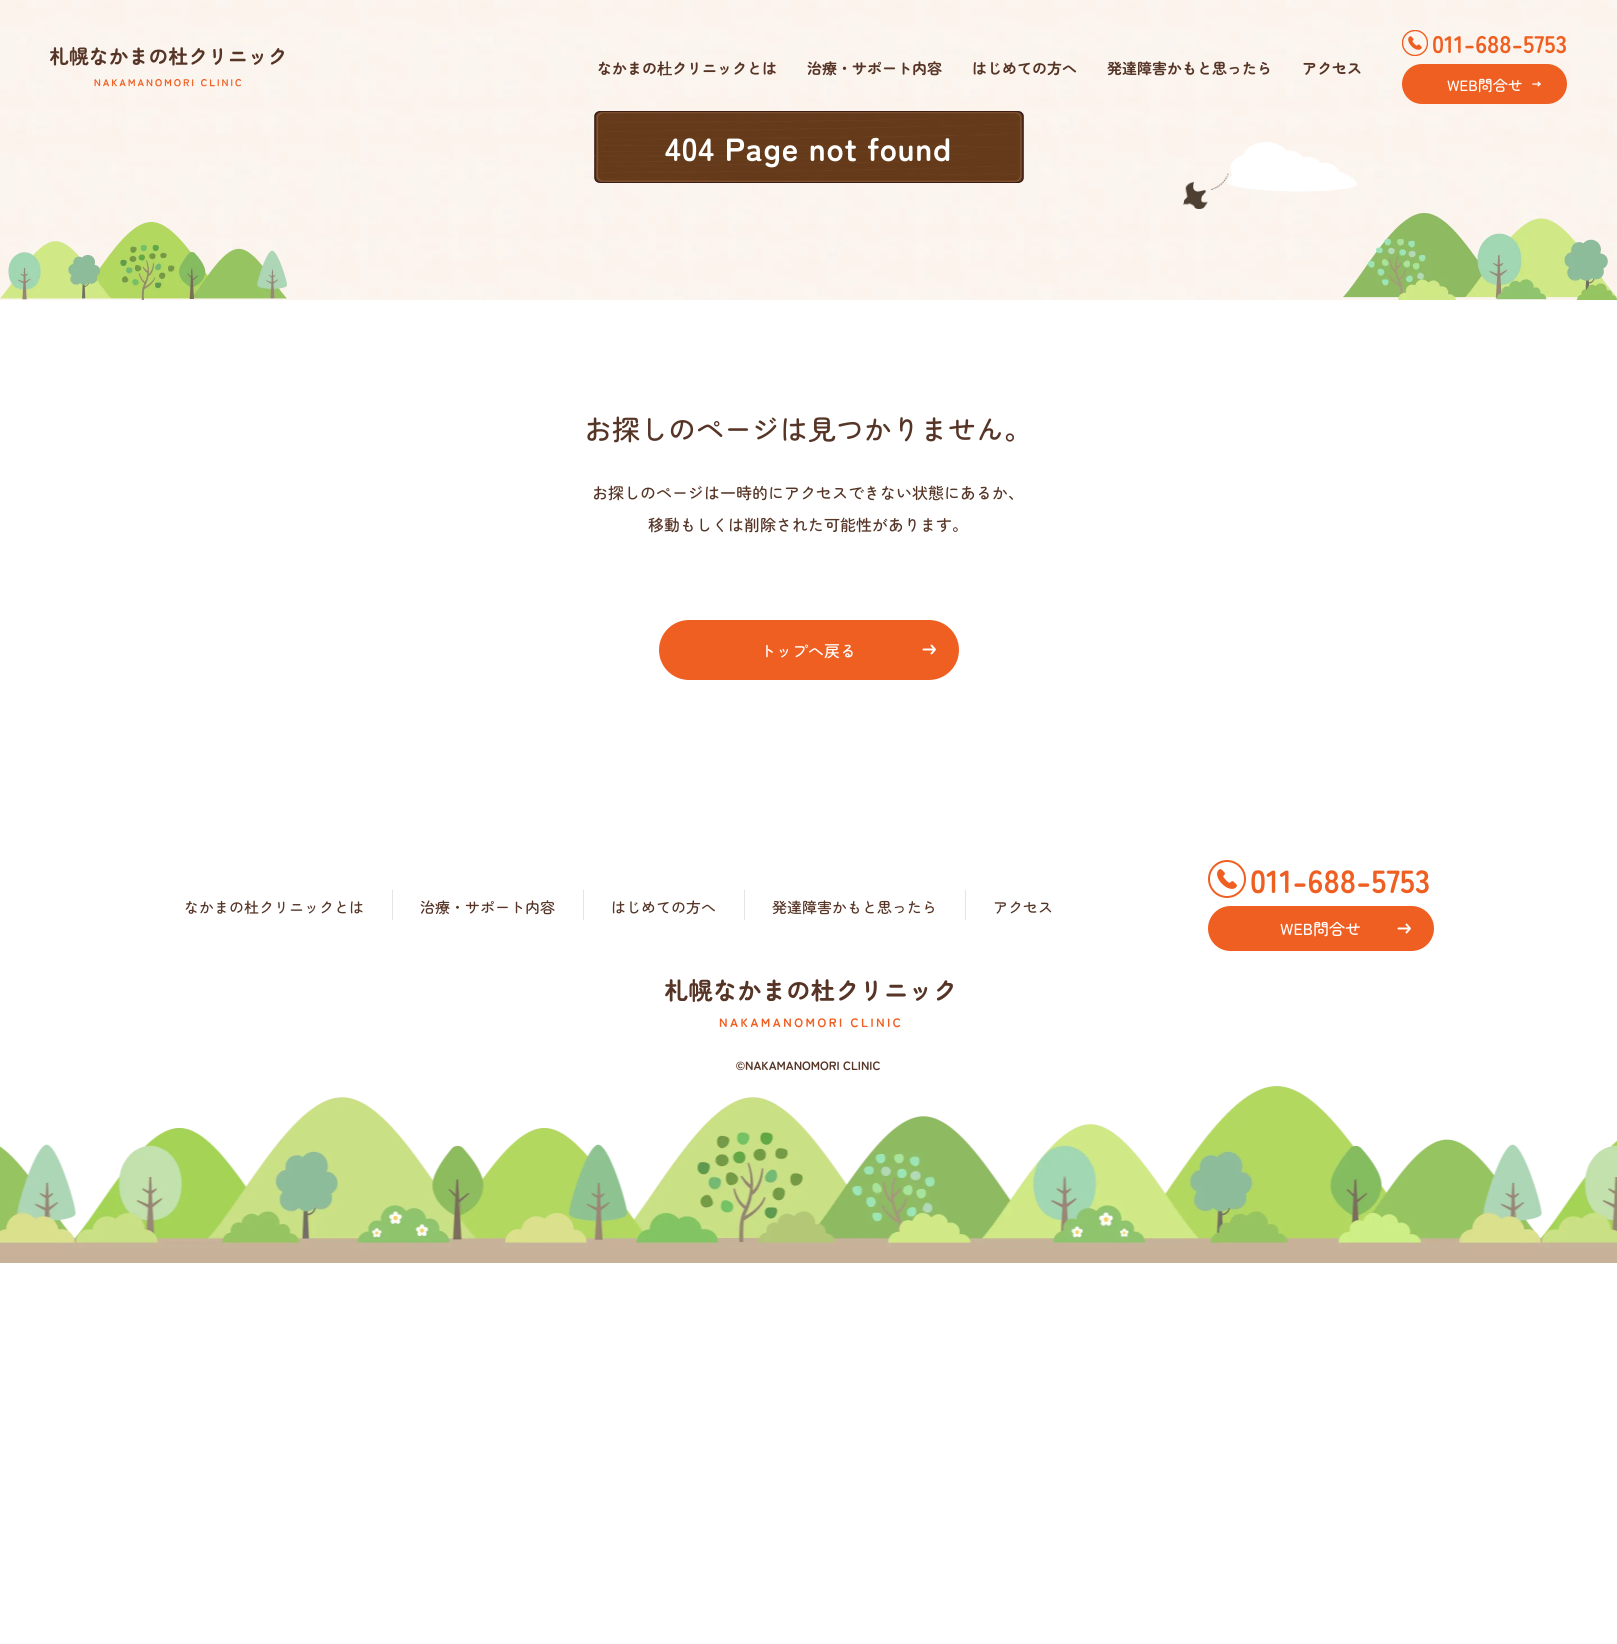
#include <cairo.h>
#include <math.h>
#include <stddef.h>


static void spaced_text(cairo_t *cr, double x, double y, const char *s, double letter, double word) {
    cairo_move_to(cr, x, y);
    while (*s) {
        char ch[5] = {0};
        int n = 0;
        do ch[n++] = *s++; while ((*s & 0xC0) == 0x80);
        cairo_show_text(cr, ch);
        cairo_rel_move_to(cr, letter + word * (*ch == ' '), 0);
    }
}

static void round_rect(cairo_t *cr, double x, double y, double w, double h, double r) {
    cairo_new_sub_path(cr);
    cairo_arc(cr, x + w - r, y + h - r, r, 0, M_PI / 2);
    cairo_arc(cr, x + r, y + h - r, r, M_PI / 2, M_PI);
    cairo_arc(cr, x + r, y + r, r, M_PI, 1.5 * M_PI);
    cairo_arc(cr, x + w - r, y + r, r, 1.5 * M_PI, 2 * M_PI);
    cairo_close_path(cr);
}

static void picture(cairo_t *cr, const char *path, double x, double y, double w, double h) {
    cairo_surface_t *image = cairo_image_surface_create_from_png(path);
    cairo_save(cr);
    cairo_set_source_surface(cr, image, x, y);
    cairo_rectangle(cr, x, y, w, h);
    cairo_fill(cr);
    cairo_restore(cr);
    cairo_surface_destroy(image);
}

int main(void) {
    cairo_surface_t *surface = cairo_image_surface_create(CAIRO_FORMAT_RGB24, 1617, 1644);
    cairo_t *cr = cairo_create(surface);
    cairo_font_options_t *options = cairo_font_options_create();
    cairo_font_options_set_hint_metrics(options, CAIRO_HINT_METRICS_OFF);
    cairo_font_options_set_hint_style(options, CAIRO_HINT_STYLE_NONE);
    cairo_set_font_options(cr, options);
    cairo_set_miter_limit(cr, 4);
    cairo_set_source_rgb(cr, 1, 1, 1);
    cairo_paint(cr);
    picture(cr, "img4.png", 0, 0, 1617, 300);
    picture(cr, "img1.png", 50, 47, 234, 40);
    cairo_select_font_face(cr, "Zen Maru Gothic", CAIRO_FONT_SLANT_NORMAL, CAIRO_FONT_WEIGHT_BOLD);
    cairo_set_font_size(cr, 15);
    cairo_set_source_rgb(cr, 0.337, 0.208, 0.153);
    cairo_move_to(cr, 597, 74);
    cairo_show_text(cr, "なかまの");
    cairo_select_font_face(cr, "WenQuanYi Zen Hei", CAIRO_FONT_SLANT_NORMAL, CAIRO_FONT_WEIGHT_BOLD);
    cairo_move_to(cr, 657, 74);
    cairo_show_text(cr, "杜");
    cairo_select_font_face(cr, "Zen Maru Gothic", CAIRO_FONT_SLANT_NORMAL, CAIRO_FONT_WEIGHT_BOLD);
    cairo_move_to(cr, 672, 74);
    cairo_show_text(cr, "クリニックとは");
    cairo_move_to(cr, 807, 74);
    cairo_show_text(cr, "治療・サポート内容");
    cairo_move_to(cr, 972, 74);
    cairo_show_text(cr, "はじめての方へ");
    cairo_move_to(cr, 1107, 74);
    cairo_show_text(cr, "発達障害かもと思ったら");
    cairo_move_to(cr, 1302, 74);
    cairo_show_text(cr, "アクセス");
    picture(cr, "img2.png", 1402, 30, 26, 26);
    cairo_set_font_size(cr, 24);
    cairo_set_source_rgb(cr, 0.941, 0.373, 0.133);
    cairo_move_to(cr, 1432, 53);
    cairo_show_text(cr, "011-688-5753");
    round_rect(cr, 1402, 64, 165, 40, 20);
    cairo_fill(cr);
    cairo_select_font_face(cr, "Zen Maru Gothic Medium", CAIRO_FONT_SLANT_NORMAL, CAIRO_FONT_WEIGHT_NORMAL);
    cairo_set_font_size(cr, 15);
    cairo_set_source_rgb(cr, 1, 1, 1);
    cairo_move_to(cr, 1447, 91);
    cairo_show_text(cr, "WEB問合せ");
    picture(cr, "img3.png", 1532, 81, 9, 6);
    picture(cr, "img5.png", 594, 111, 430, 72);
    cairo_select_font_face(cr, "Zen Maru Gothic", CAIRO_FONT_SLANT_NORMAL, CAIRO_FONT_WEIGHT_BOLD);
    cairo_set_font_size(cr, 32);
    spaced_text(cr, 665, 161, "404 Page not found", 0.75, 0);
    cairo_select_font_face(cr, "Zen Maru Gothic Medium", CAIRO_FONT_SLANT_NORMAL, CAIRO_FONT_WEIGHT_NORMAL);
    cairo_set_font_size(cr, 28);
    cairo_set_source_rgb(cr, 0.337, 0.208, 0.153);
    cairo_move_to(cr, 584, 440);
    cairo_show_text(cr, "お探しのページは見つかりません。");
    cairo_set_font_size(cr, 16);
    cairo_move_to(cr, 592, 499);
    cairo_show_text(cr, "お探しのページは一時的にアクセスできない状態にあるか、");
    cairo_move_to(cr, 648, 531);
    cairo_show_text(cr, "移動もしくは削除された可能性があります。");
    cairo_set_source_rgb(cr, 0.941, 0.373, 0.133);
    round_rect(cr, 659, 620, 300, 60, 30);
    cairo_fill(cr);
    cairo_set_source_rgb(cr, 1, 1, 1);
    cairo_move_to(cr, 760, 657);
    cairo_show_text(cr, "トップへ戻る");
    cairo_new_path(cr);
    cairo_move_to(cr, 935, 649.5);
    cairo_line_to(cr, 923.5, 649.5);
    cairo_move_to(cr, 935, 649.5);
    cairo_line_to(cr, 931.5, 645.5);
    cairo_move_to(cr, 935, 649.5);
    cairo_line_to(cr, 931.5, 653.5);
    cairo_set_line_width(cr, 1.9);
    cairo_set_line_cap(cr, CAIRO_LINE_CAP_ROUND);
    cairo_set_line_join(cr, CAIRO_LINE_JOIN_ROUND);
    cairo_stroke(cr);
    picture(cr, "img6.png", 0, 1086, 1617, 177);
    cairo_set_font_size(cr, 15);
    cairo_set_source_rgb(cr, 0.337, 0.208, 0.153);
    cairo_move_to(cr, 184, 913);
    cairo_show_text(cr, "なかまの杜クリニックとは");
    cairo_set_source_rgb(cr, 0.894, 0.894, 0.894);
    cairo_rectangle(cr, 392, 890, 1, 30);
    cairo_fill(cr);
    cairo_set_source_rgb(cr, 0.337, 0.208, 0.153);
    cairo_move_to(cr, 420, 913);
    cairo_show_text(cr, "治療・サポート内容");
    cairo_set_source_rgb(cr, 0.894, 0.894, 0.894);
    cairo_rectangle(cr, 583, 890, 1, 30);
    cairo_fill(cr);
    cairo_set_source_rgb(cr, 0.337, 0.208, 0.153);
    cairo_move_to(cr, 611, 913);
    cairo_show_text(cr, "はじめての方へ");
    cairo_set_source_rgb(cr, 0.894, 0.894, 0.894);
    cairo_rectangle(cr, 744, 890, 1, 30);
    cairo_fill(cr);
    cairo_set_source_rgb(cr, 0.337, 0.208, 0.153);
    cairo_move_to(cr, 772, 913);
    cairo_show_text(cr, "発達障害かもと思ったら");
    cairo_set_source_rgb(cr, 0.894, 0.894, 0.894);
    cairo_rectangle(cr, 965, 890, 1, 30);
    cairo_fill(cr);
    cairo_set_source_rgb(cr, 0.337, 0.208, 0.153);
    cairo_move_to(cr, 993, 913);
    cairo_show_text(cr, "アクセス");
    picture(cr, "img7.png", 1208, 860, 38, 38);
    cairo_select_font_face(cr, "Zen Maru Gothic", CAIRO_FONT_SLANT_NORMAL, CAIRO_FONT_WEIGHT_BOLD);
    cairo_set_font_size(cr, 32);
    cairo_set_source_rgb(cr, 0.941, 0.373, 0.133);
    cairo_move_to(cr, 1250, 893);
    cairo_show_text(cr, "011-688-5753");
    round_rect(cr, 1208, 906, 226, 45, 22.5);
    cairo_fill(cr);
    cairo_select_font_face(cr, "Zen Maru Gothic Medium", CAIRO_FONT_SLANT_NORMAL, CAIRO_FONT_WEIGHT_NORMAL);
    cairo_set_font_size(cr, 16);
    cairo_set_source_rgb(cr, 1, 1, 1);
    cairo_move_to(cr, 1280, 935);
    cairo_show_text(cr, "WEB問合せ");
    cairo_new_path(cr);
    cairo_move_to(cr, 1410, 928.5);
    cairo_line_to(cr, 1398.5, 928.5);
    cairo_move_to(cr, 1410, 928.5);
    cairo_line_to(cr, 1406.5, 924.5);
    cairo_move_to(cr, 1410, 928.5);
    cairo_line_to(cr, 1406.5, 932.5);
    cairo_stroke(cr);
    picture(cr, "img8.png", 665, 979, 288, 49);
    cairo_select_font_face(cr, "Liberation Sans", CAIRO_FONT_SLANT_NORMAL, CAIRO_FONT_WEIGHT_BOLD);
    cairo_set_font_size(cr, 12);
    cairo_set_source_rgb(cr, 0.337, 0.208, 0.153);
    cairo_move_to(cr, 736, 1070);
    cairo_show_text(cr, "©");
    cairo_select_font_face(cr, "Zen Maru Gothic", CAIRO_FONT_SLANT_NORMAL, CAIRO_FONT_WEIGHT_BOLD);
    cairo_move_to(cr, 745, 1070);
    cairo_show_text(cr, "NAKAMANOMORI CLINIC");
    cairo_surface_write_to_png(surface, "page.png");
    cairo_font_options_destroy(options);
    cairo_destroy(cr);
    cairo_surface_destroy(surface);
    return 0;
}
